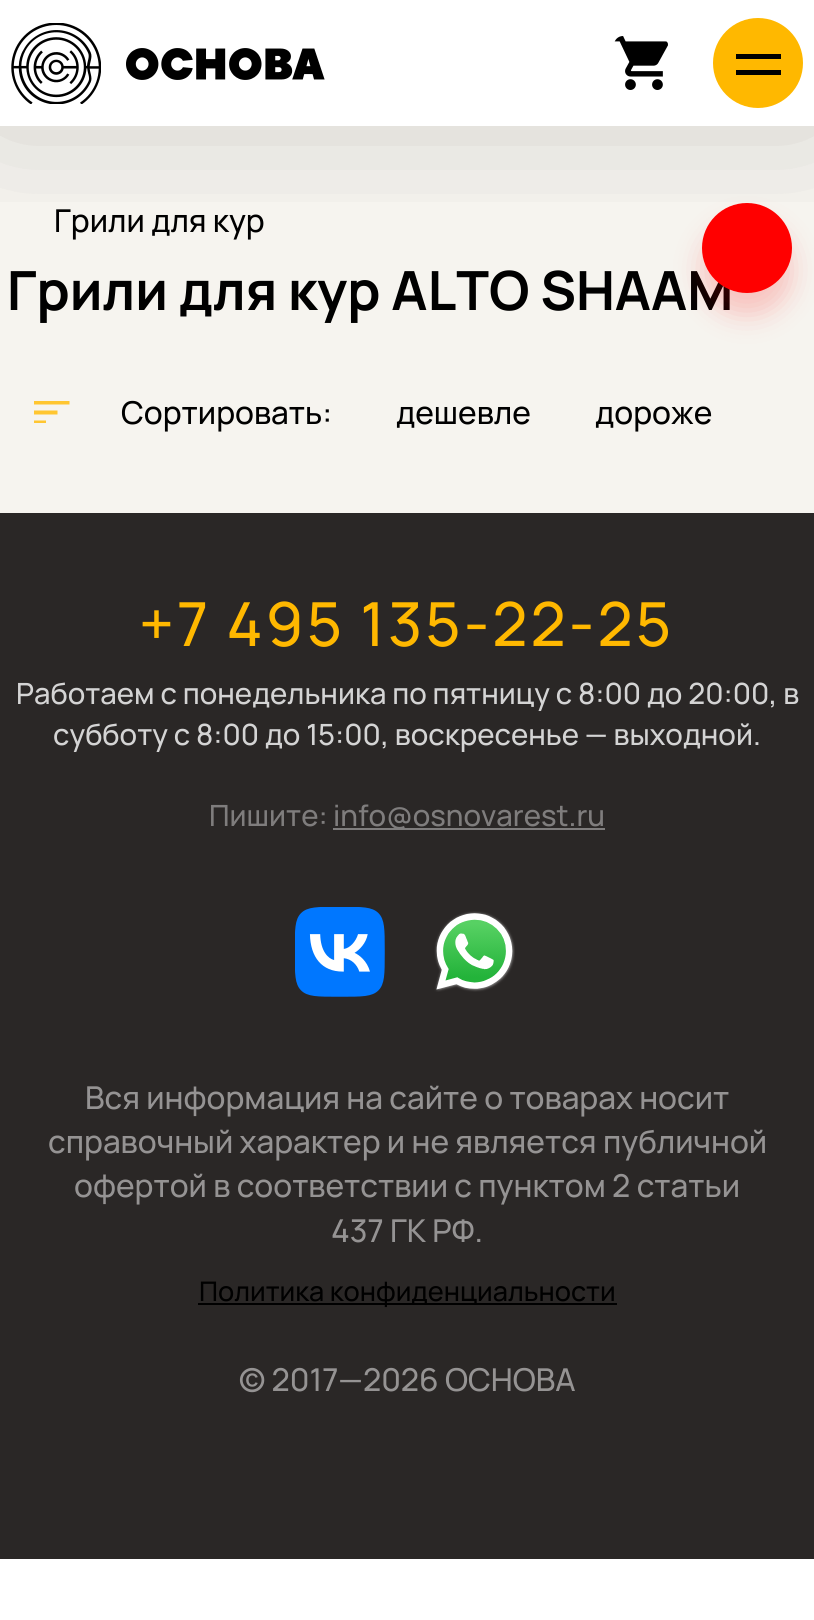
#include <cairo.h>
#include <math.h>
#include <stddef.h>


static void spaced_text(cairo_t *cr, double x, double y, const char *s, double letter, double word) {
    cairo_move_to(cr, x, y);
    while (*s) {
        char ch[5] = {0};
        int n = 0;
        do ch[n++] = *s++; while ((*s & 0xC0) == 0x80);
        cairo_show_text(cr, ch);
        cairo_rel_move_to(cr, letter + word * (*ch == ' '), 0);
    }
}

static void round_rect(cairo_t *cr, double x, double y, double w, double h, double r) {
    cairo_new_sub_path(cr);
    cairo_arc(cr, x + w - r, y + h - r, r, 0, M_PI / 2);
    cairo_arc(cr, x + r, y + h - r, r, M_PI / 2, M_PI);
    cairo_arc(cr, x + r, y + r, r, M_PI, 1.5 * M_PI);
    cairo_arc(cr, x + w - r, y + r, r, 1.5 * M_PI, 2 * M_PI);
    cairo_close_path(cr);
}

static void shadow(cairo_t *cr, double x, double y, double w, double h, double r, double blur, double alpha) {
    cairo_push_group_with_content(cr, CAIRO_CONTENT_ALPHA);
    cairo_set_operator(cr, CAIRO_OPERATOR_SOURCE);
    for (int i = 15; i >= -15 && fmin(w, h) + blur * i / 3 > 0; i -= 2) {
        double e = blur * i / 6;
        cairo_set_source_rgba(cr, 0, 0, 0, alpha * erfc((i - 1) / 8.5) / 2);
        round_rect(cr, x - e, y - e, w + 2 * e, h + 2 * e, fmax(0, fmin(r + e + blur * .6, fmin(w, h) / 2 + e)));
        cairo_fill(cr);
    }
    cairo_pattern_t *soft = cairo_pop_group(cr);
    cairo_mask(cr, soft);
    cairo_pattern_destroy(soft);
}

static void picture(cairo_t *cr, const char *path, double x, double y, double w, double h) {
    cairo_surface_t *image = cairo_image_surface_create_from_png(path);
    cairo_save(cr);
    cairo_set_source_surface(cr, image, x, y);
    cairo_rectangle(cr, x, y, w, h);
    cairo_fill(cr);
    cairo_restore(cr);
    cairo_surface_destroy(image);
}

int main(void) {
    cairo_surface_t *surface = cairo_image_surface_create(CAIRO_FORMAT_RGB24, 814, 1620);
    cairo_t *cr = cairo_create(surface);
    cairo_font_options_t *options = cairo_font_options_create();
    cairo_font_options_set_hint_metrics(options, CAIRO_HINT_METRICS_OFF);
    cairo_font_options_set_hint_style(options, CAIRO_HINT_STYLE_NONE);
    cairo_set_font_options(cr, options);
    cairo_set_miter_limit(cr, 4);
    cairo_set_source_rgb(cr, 1, 1, 1);
    cairo_paint(cr);
    cairo_set_source_rgb(cr, 0.961, 0.957, 0.937);
    cairo_rectangle(cr, 0, 126, 814, 387);
    cairo_fill(cr);
    cairo_select_font_face(cr, "Manrope", CAIRO_FONT_SLANT_NORMAL, CAIRO_FONT_WEIGHT_BOLD);
    cairo_set_font_size(cr, 54);
    cairo_set_source_rgb(cr, 0, 0, 0);
    cairo_move_to(cr, 7, 310);
    cairo_show_text(cr, "Грили для кур ALTO SHAAM");
    cairo_set_source_rgb(cr, 1, 0, 0);
    shadow(cr, 702, 225, 90, 90, 45, 13.5, 0.2);
    cairo_set_source_rgb(cr, 1, 0, 0);
    cairo_arc(cr, 747, 248, 45, 0, 2 * M_PI);
    cairo_fill(cr);
    cairo_save(cr);
    cairo_rectangle(cr, 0, 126, 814, 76);
    cairo_clip(cr);
    cairo_set_source_rgb(cr, 0, 0, 0);
    shadow(cr, -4, -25, 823, 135, 0, 72, 0.2);
    cairo_restore(cr);
    picture(cr, "img1.png", 11, 23, 90, 81);
    picture(cr, "img2.png", 126, 48, 199, 32);
    picture(cr, "img3.png", 614, 36, 54, 54);
    cairo_set_source_rgb(cr, 1, 0.722, 0);
    cairo_arc(cr, 758, 63, 45, 0, 2 * M_PI);
    cairo_fill(cr);
    cairo_set_source_rgb(cr, 0, 0, 0);
    cairo_rectangle(cr, 736, 54, 45, 5);
    cairo_fill(cr);
    cairo_rectangle(cr, 736, 70, 45, 5);
    cairo_fill(cr);
    cairo_select_font_face(cr, "Manrope Medium", CAIRO_FONT_SLANT_NORMAL, CAIRO_FONT_WEIGHT_NORMAL);
    cairo_set_font_size(cr, 31.5);
    cairo_move_to(cr, 54, 232);
    cairo_show_text(cr, "Грили для кур");
    cairo_save(cr);
    cairo_rectangle(cr, 34, 401, 36, 22);
    cairo_clip(cr);
    cairo_set_source_rgb(cr, 1, 0.776, 0.192);
    cairo_new_path(cr);
    cairo_move_to(cr, 34, 424.5);
    cairo_line_to(cr, 46, 424.5);
    cairo_line_to(cr, 46, 420.5);
    cairo_line_to(cr, 34, 420.5);
    cairo_close_path(cr);
    cairo_move_to(cr, 34, 400.5);
    cairo_line_to(cr, 34, 404.5);
    cairo_line_to(cr, 69.5, 404.5);
    cairo_line_to(cr, 69.5, 400.5);
    cairo_close_path(cr);
    cairo_move_to(cr, 34, 414.5);
    cairo_line_to(cr, 57.5, 414.5);
    cairo_line_to(cr, 57.5, 410.5);
    cairo_line_to(cr, 34, 410.5);
    cairo_close_path(cr);
    cairo_fill(cr);
    cairo_restore(cr);
    cairo_move_to(cr, 121, 424);
    cairo_show_text(cr, "Сортировать:");
    cairo_move_to(cr, 396, 424);
    cairo_show_text(cr, "дешевле");
    cairo_move_to(cr, 595, 424);
    cairo_show_text(cr, "дороже");
    cairo_set_source_rgb(cr, 0.165, 0.153, 0.149);
    cairo_rectangle(cr, 0, 513, 814, 1046);
    cairo_fill(cr);
    cairo_set_font_size(cr, 60.75);
    cairo_set_source_rgb(cr, 1, 0.722, 0);
    spaced_text(cr, 139, 646, "+7 495 135-22-25", 3.1, 0);
    cairo_set_font_size(cr, 29.25);
    cairo_set_source_rgb(cr, 0.831, 0.831, 0.831);
    cairo_move_to(cr, 16, 704);
    cairo_show_text(cr, "Работаем c понедельника по пятницу с 8:00 до 20:00, в");
    cairo_move_to(cr, 53, 745);
    cairo_show_text(cr, "субботу с 8:00 до 15:00, воскресенье — выходной.");
    cairo_set_source_rgb(cr, 0.498, 0.49, 0.49);
    cairo_move_to(cr, 209, 826);
    cairo_show_text(cr, "Пишите:");
    cairo_rectangle(cr, 333, 828, 272, 2);
    cairo_fill(cr);
    cairo_move_to(cr, 333, 826);
    cairo_show_text(cr, "info@osnovarest.ru");
    picture(cr, "img4.png", 295, 907, 90, 90);
    picture(cr, "img5.png", 434, 911, 81, 81);
    cairo_set_font_size(cr, 31.5);
    cairo_set_source_rgb(cr, 0.584, 0.576, 0.576);
    cairo_move_to(cr, 85, 1109);
    cairo_show_text(cr, "Вся информация на сайте о товарах носит");
    cairo_move_to(cr, 48, 1153);
    cairo_show_text(cr, "справочный характер и не является публичной");
    cairo_move_to(cr, 74, 1197);
    cairo_show_text(cr, "офертой в соответствии с пунктом 2 статьи");
    cairo_move_to(cr, 331, 1242);
    cairo_show_text(cr, "437 ГК РФ.");
    cairo_set_source_rgb(cr, 0, 0, 0);
    cairo_rectangle(cr, 198, 1303, 419, 2);
    cairo_fill(cr);
    cairo_set_font_size(cr, 27);
    cairo_move_to(cr, 199, 1301);
    cairo_show_text(cr, "Политика конфиденциальности");
    cairo_set_font_size(cr, 31.5);
    cairo_set_source_rgb(cr, 0.584, 0.576, 0.576);
    cairo_move_to(cr, 239, 1391);
    cairo_show_text(cr, "© 2017—2026 ОСНОВА");
    cairo_surface_write_to_png(surface, "page.png");
    cairo_font_options_destroy(options);
    cairo_destroy(cr);
    cairo_surface_destroy(surface);
    return 0;
}
